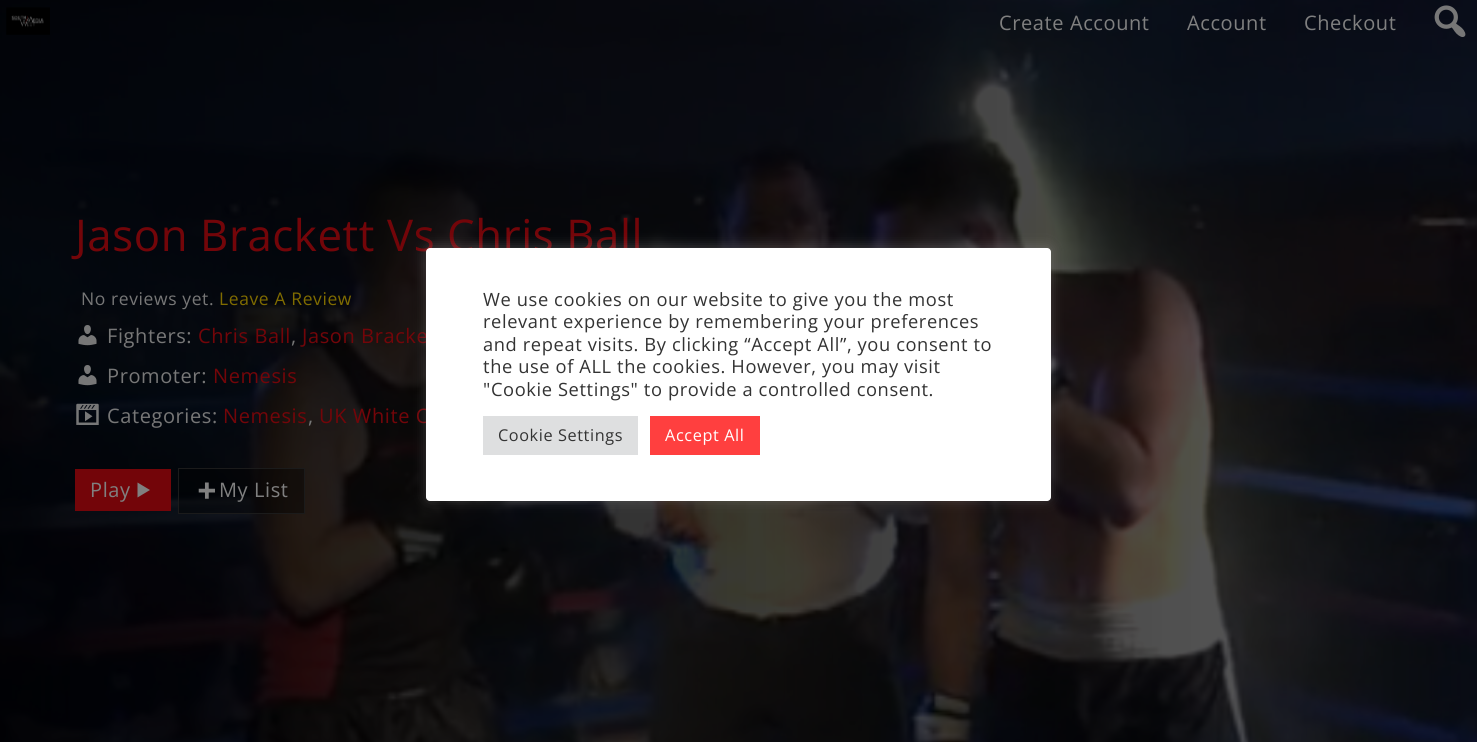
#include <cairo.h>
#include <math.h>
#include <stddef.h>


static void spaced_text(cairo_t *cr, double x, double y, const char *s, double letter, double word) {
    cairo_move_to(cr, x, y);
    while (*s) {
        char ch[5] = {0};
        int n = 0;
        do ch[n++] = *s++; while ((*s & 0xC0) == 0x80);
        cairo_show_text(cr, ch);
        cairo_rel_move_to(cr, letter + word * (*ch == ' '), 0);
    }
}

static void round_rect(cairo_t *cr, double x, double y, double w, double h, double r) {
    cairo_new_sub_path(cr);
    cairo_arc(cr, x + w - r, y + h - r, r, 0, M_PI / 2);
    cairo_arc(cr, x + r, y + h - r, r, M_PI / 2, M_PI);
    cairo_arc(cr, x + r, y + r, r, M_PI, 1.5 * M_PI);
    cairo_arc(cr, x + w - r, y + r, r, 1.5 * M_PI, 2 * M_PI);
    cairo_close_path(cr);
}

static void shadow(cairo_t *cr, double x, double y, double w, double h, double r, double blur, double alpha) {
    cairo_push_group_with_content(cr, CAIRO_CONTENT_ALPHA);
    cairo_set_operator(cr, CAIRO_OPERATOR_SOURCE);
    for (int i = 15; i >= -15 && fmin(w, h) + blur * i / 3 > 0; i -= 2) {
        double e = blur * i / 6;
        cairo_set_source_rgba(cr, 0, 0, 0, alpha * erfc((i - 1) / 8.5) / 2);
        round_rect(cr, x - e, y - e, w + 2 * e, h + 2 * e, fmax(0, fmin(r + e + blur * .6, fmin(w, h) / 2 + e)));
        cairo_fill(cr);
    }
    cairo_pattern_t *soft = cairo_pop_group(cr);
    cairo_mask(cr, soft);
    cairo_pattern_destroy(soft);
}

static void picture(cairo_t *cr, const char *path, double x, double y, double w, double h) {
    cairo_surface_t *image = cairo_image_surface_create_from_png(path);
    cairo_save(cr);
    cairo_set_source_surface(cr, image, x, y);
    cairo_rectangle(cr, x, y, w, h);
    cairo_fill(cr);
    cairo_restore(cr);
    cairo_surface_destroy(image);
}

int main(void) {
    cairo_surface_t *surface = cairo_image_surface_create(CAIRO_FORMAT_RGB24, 1477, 742);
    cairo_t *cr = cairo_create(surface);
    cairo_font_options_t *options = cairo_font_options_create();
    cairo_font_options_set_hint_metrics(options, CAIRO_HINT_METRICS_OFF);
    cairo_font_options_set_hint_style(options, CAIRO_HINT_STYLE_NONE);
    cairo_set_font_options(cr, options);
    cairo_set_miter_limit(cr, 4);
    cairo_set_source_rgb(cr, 1, 1, 1);
    cairo_paint(cr);
    picture(cr, "img3.png", 0, 0, 1477, 742);
    picture(cr, "img1.png", 6, 7, 44, 28);
    cairo_select_font_face(cr, "Open Sans", CAIRO_FONT_SLANT_NORMAL, CAIRO_FONT_WEIGHT_NORMAL);
    cairo_set_font_size(cr, 20);
    cairo_set_source_rgb(cr, 0.502, 0.502, 0.502);
    spaced_text(cr, 999, 30, "Create Account", 0.6, 0);
    spaced_text(cr, 1187, 30, "Account", 0.6, 0);
    spaced_text(cr, 1304, 30, "Checkout", 0.6, 0);
    picture(cr, "img2.png", 1434, 5, 32, 32);
    cairo_set_font_size(cr, 43.75);
    cairo_set_source_rgb(cr, 0.451, 0.02, 0.039);
    spaced_text(cr, 75, 251, "Jason Brackett Vs Chris Ball", 0.6, 0);
    cairo_set_font_size(cr, 17.5);
    cairo_set_source_rgb(cr, 0.467, 0.467, 0.467);
    spaced_text(cr, 81, 305, "No reviews yet.", 0.6, 0);
    cairo_set_source_rgb(cr, 0.502, 0.424, 0);
    spaced_text(cr, 219, 305, "Leave A Review", 0.6, 0);
    picture(cr, "img4.png", 78, 325, 19, 21);
    cairo_set_font_size(cr, 20);
    cairo_set_source_rgb(cr, 0.467, 0.467, 0.467);
    spaced_text(cr, 107, 343, "Fighters:", 0.6, 0);
    cairo_set_source_rgb(cr, 0.451, 0.02, 0.039);
    spaced_text(cr, 198, 343, "Chris Ball", 0.6, 0);
    cairo_set_source_rgb(cr, 0.467, 0.467, 0.467);
    spaced_text(cr, 291, 343, ",", 0.6, 0);
    cairo_set_source_rgb(cr, 0.451, 0.02, 0.039);
    spaced_text(cr, 302, 343, "Jason Bracke", 0.6, 0);
    picture(cr, "img5.png", 78, 365, 19, 21);
    cairo_set_source_rgb(cr, 0.467, 0.467, 0.467);
    spaced_text(cr, 107, 383, "Promoter:", 0.6, 0);
    cairo_set_source_rgb(cr, 0.451, 0.02, 0.039);
    spaced_text(cr, 213, 383, "Nemesis", 0.6, 0);
    picture(cr, "img6.png", 76, 403, 23, 22);
    cairo_set_source_rgb(cr, 0.467, 0.467, 0.467);
    spaced_text(cr, 107, 423, "Categories:", 0.6, 0);
    cairo_set_source_rgb(cr, 0.451, 0.02, 0.039);
    spaced_text(cr, 223, 423, "Nemesis", 0.6, 0);
    cairo_set_source_rgb(cr, 0.467, 0.467, 0.467);
    spaced_text(cr, 308, 423, ",", 0.6, 0);
    cairo_set_source_rgb(cr, 0.451, 0.02, 0.039);
    spaced_text(cr, 319, 423, "UK White C", 0.6, 0);
    cairo_rectangle(cr, 75, 469, 96, 42);
    cairo_fill(cr);
    cairo_set_source_rgb(cr, 0.502, 0.502, 0.502);
    spaced_text(cr, 90, 497, "Play", 0.6, 0);
    cairo_new_path(cr);
    cairo_move_to(cr, 137.5, 482.5);
    cairo_line_to(cr, 150, 490);
    cairo_line_to(cr, 137.5, 497.5);
    cairo_close_path(cr);
    cairo_fill(cr);
    cairo_set_source_rgba(cr, 0, 0, 0, 0.4);
    cairo_rectangle(cr, 178.5, 468.5, 126, 45);
    cairo_fill_preserve(cr);
    cairo_set_source_rgb(cr, 0.106, 0.106, 0.106);
    cairo_set_line_width(cr, 1);
    cairo_stroke(cr);
    picture(cr, "img7.png", 198, 482, 17, 17);
    cairo_set_source_rgb(cr, 0.502, 0.502, 0.502);
    spaced_text(cr, 219, 497, "My List", 0.6, 0);
    cairo_set_source_rgb(cr, 0.675, 0.671, 0.671);
    shadow(cr, 426, 246, 625, 254, 4, 6, 0.3);
    cairo_set_source_rgb(cr, 1, 1, 1);
    round_rect(cr, 426, 248, 625, 253, 4);
    cairo_fill(cr);
    cairo_set_font_size(cr, 18.3);
    cairo_set_source_rgb(cr, 0.2, 0.2, 0.2);
    spaced_text(cr, 483, 306, "We use cookies on our website to give you the most", 0.6, 0);
    spaced_text(cr, 483, 328, "relevant experience by remembering your preferences", 0.6, 0);
    spaced_text(cr, 483, 351, "and repeat visits. By clicking “Accept All”, you consent to", 0.6, 0);
    spaced_text(cr, 483, 373, "the use of ALL the cookies. However, you may visit", 0.6, 0);
    spaced_text(cr, 483, 396, "\"Cookie Settings\" to provide a controlled consent.", 0.6, 0);
    cairo_set_source_rgb(cr, 0.871, 0.875, 0.878);
    cairo_rectangle(cr, 483, 416, 155, 39);
    cairo_fill(cr);
    cairo_set_font_size(cr, 16.25);
    cairo_set_source_rgb(cr, 0.2, 0.2, 0.2);
    spaced_text(cr, 498, 441, "Cookie Settings", 0.6, 0);
    cairo_set_source_rgb(cr, 1, 0.247, 0.247);
    cairo_rectangle(cr, 650, 416, 110, 39);
    cairo_fill(cr);
    cairo_set_source_rgb(cr, 1, 1, 1);
    spaced_text(cr, 665, 441, "Accept All", 0.6, 0);
    cairo_surface_write_to_png(surface, "page.png");
    cairo_font_options_destroy(options);
    cairo_destroy(cr);
    cairo_surface_destroy(surface);
    return 0;
}
